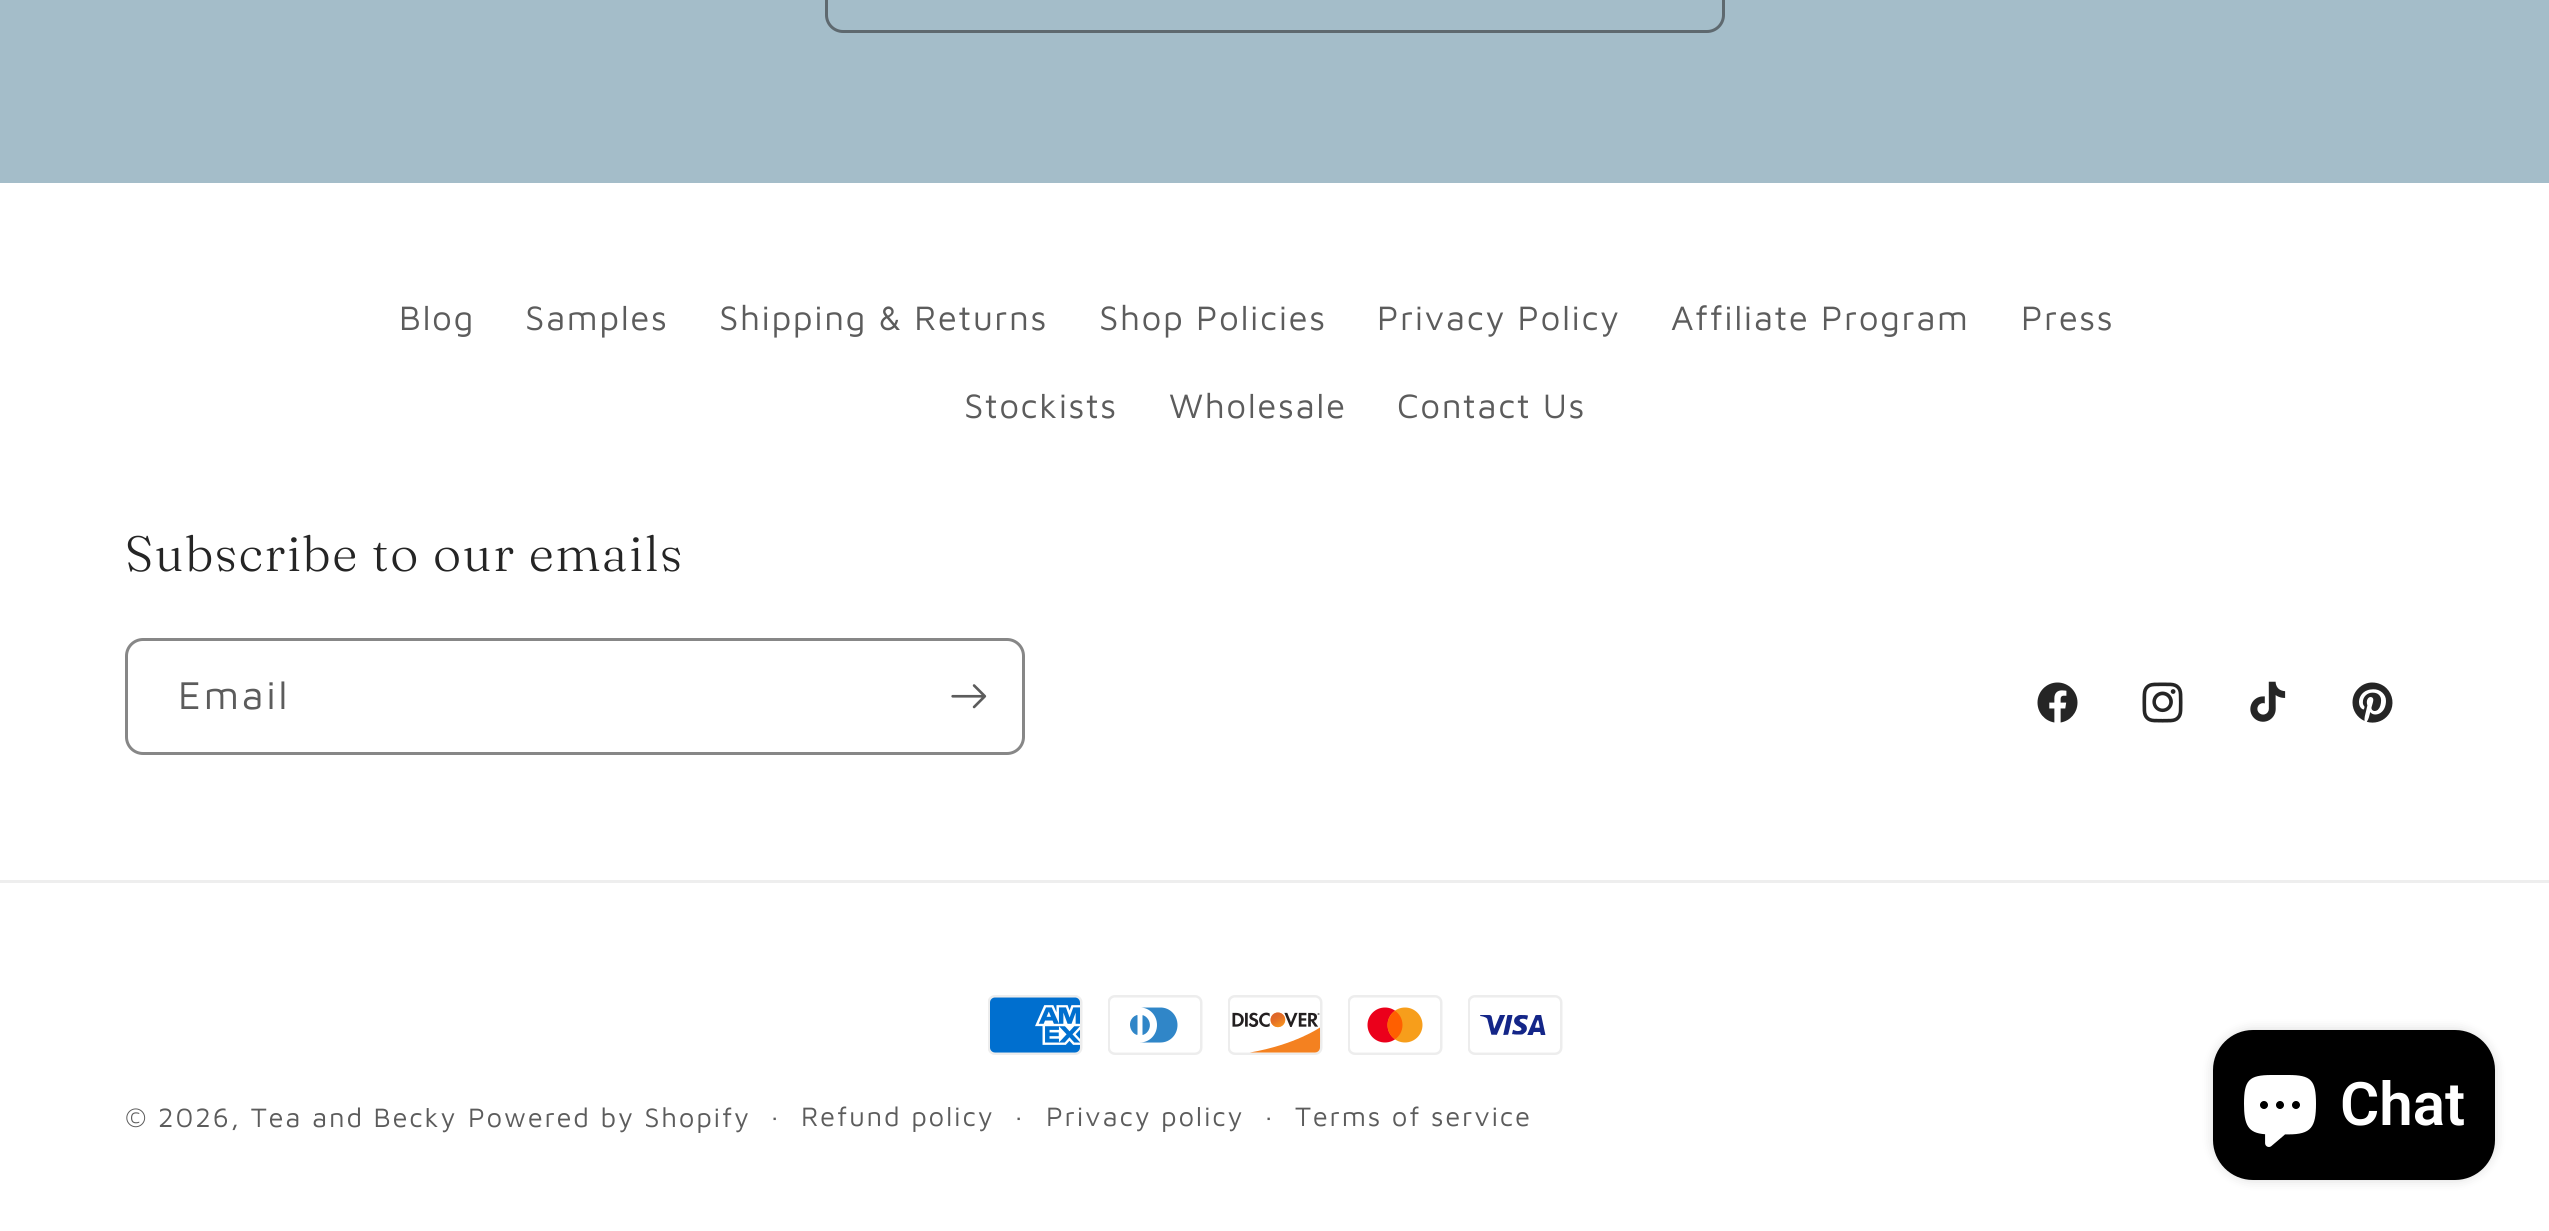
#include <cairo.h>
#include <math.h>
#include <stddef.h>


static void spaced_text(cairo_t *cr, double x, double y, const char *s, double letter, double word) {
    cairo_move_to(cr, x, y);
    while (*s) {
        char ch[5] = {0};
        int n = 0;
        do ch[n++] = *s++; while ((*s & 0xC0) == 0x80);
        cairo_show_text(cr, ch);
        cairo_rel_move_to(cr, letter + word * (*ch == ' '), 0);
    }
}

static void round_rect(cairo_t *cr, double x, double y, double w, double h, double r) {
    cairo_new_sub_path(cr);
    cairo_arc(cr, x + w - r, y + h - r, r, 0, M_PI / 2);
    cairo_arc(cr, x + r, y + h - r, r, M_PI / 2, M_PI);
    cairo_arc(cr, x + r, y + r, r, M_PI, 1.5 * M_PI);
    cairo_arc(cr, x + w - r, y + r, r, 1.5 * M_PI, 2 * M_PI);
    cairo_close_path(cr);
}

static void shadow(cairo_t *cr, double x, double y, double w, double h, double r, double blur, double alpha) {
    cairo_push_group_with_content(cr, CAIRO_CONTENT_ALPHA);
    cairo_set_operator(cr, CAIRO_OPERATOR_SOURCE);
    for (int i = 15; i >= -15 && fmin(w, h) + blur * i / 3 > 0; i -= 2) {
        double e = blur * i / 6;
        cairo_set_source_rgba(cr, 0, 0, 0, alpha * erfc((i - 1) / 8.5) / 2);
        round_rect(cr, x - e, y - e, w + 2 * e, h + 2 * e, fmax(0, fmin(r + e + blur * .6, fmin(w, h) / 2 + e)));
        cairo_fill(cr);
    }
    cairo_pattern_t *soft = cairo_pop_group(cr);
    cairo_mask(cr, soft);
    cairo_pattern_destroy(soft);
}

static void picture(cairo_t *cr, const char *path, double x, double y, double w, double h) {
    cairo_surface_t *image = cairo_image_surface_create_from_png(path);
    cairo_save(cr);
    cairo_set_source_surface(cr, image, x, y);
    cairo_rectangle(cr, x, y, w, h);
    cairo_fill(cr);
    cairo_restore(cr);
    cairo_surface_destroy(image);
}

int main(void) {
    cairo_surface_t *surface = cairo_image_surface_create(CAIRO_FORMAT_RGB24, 2549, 1231);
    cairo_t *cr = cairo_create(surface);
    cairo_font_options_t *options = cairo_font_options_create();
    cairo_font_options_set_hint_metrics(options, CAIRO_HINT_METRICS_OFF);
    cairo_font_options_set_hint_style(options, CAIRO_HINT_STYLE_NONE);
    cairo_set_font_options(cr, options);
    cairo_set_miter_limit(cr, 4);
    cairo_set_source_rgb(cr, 1, 1, 1);
    cairo_paint(cr);
    cairo_set_source_rgb(cr, 0.643, 0.741, 0.788);
    cairo_rectangle(cr, 0, 0, 2549, 183);
    cairo_fill(cr);
    round_rect(cr, 826.5, -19.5, 897, 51, 16.5);
    cairo_set_source_rgb(cr, 0.369, 0.412, 0.435);
    cairo_set_line_width(cr, 3);
    cairo_stroke(cr);
    cairo_select_font_face(cr, "Maven Pro", CAIRO_FONT_SLANT_NORMAL, CAIRO_FONT_WEIGHT_NORMAL);
    cairo_set_font_size(cr, 35);
    cairo_set_source_rgb(cr, 0.361, 0.361, 0.361);
    spaced_text(cr, 399, 330, "Blog", 1.5, 0);
    spaced_text(cr, 525, 330, "Samples", 1.5, 0);
    spaced_text(cr, 719, 330, "Shipping & Returns", 1.5, 0);
    spaced_text(cr, 1099, 330, "Shop Policies", 1.5, 0);
    spaced_text(cr, 1377, 330, "Privacy Policy", 1.5, 0);
    spaced_text(cr, 1671, 330, "Affiliate Program", 1.5, 0);
    spaced_text(cr, 2021, 330, "Press", 1.5, 0);
    spaced_text(cr, 964, 418, "Stockists", 1.5, 0);
    spaced_text(cr, 1169, 418, "Wholesale", 1.5, 0);
    spaced_text(cr, 1397, 418, "Contact Us", 1.5, 0);
    cairo_select_font_face(cr, "Fraunces Light", CAIRO_FONT_SLANT_NORMAL, CAIRO_FONT_WEIGHT_NORMAL);
    cairo_set_font_size(cr, 49.5);
    cairo_set_source_rgb(cr, 0.145, 0.145, 0.145);
    spaced_text(cr, 125, 571, "Subscribe to our emails", 1.65, 0);
    round_rect(cr, 126.5, 639.5, 897, 114, 16.5);
    cairo_set_source_rgb(cr, 0.529, 0.529, 0.529);
    cairo_stroke(cr);
    cairo_select_font_face(cr, "Maven Pro", CAIRO_FONT_SLANT_NORMAL, CAIRO_FONT_WEIGHT_NORMAL);
    cairo_set_font_size(cr, 40);
    cairo_set_source_rgb(cr, 0.361, 0.361, 0.361);
    spaced_text(cr, 178, 709, "Email", 2.5, 0);
    picture(cr, "img1.png", 951, 684, 36, 25);
    picture(cr, "img2.png", 2037, 682, 41, 41);
    picture(cr, "img3.png", 2142, 682, 41, 41);
    picture(cr, "img4.png", 2250, 681, 36, 41);
    picture(cr, "img5.png", 2352, 682, 41, 41);
    cairo_set_source_rgb(cr, 0.933, 0.933, 0.933);
    cairo_rectangle(cr, 0, 880, 2549, 3);
    cairo_fill(cr);
    picture(cr, "img6.png", 988, 995, 95, 60);
    picture(cr, "img7.png", 1108, 995, 95, 60);
    picture(cr, "img8.png", 1228, 995, 95, 60);
    picture(cr, "img9.png", 1348, 995, 95, 60);
    picture(cr, "img10.png", 1468, 995, 95, 60);
    cairo_set_font_size(cr, 27.5);
    cairo_set_source_rgb(cr, 0.361, 0.361, 0.361);
    spaced_text(cr, 125, 1127, "© 2026, Tea and Becky", 1.75, 0);
    spaced_text(cr, 468, 1127, "Powered by Shopify", 1.75, 0);
    cairo_set_font_size(cr, 30);
    spaced_text(cr, 770, 1127, "·", 1.75, 0);
    cairo_set_font_size(cr, 27.5);
    spaced_text(cr, 801, 1126, "Refund policy", 1.75, 0);
    cairo_set_font_size(cr, 30);
    spaced_text(cr, 1014, 1127, "·", 1.75, 0);
    cairo_set_font_size(cr, 27.5);
    spaced_text(cr, 1046, 1126, "Privacy policy", 1.75, 0);
    cairo_set_font_size(cr, 30);
    spaced_text(cr, 1264, 1127, "·", 1.75, 0);
    cairo_set_font_size(cr, 27.5);
    spaced_text(cr, 1295, 1126, "Terms of service", 1.75, 0);
    cairo_set_source_rgb(cr, 0, 0, 0);
    shadow(cr, 2213, 1030, 282, 150, 40, 6, 0.15);
    cairo_set_source_rgb(cr, 0, 0, 0);
    round_rect(cr, 2213, 1030, 282, 150, 40);
    cairo_fill(cr);
    picture(cr, "img11.png", 2244, 1075, 72, 72);
    cairo_select_font_face(cr, "Roboto SemiBold", CAIRO_FONT_SLANT_NORMAL, CAIRO_FONT_WEIGHT_NORMAL);
    cairo_set_font_size(cr, 60);
    cairo_set_source_rgb(cr, 1, 1, 1);
    cairo_move_to(cr, 2340, 1125);
    cairo_show_text(cr, "Chat");
    cairo_surface_write_to_png(surface, "page.png");
    cairo_font_options_destroy(options);
    cairo_destroy(cr);
    cairo_surface_destroy(surface);
    return 0;
}
